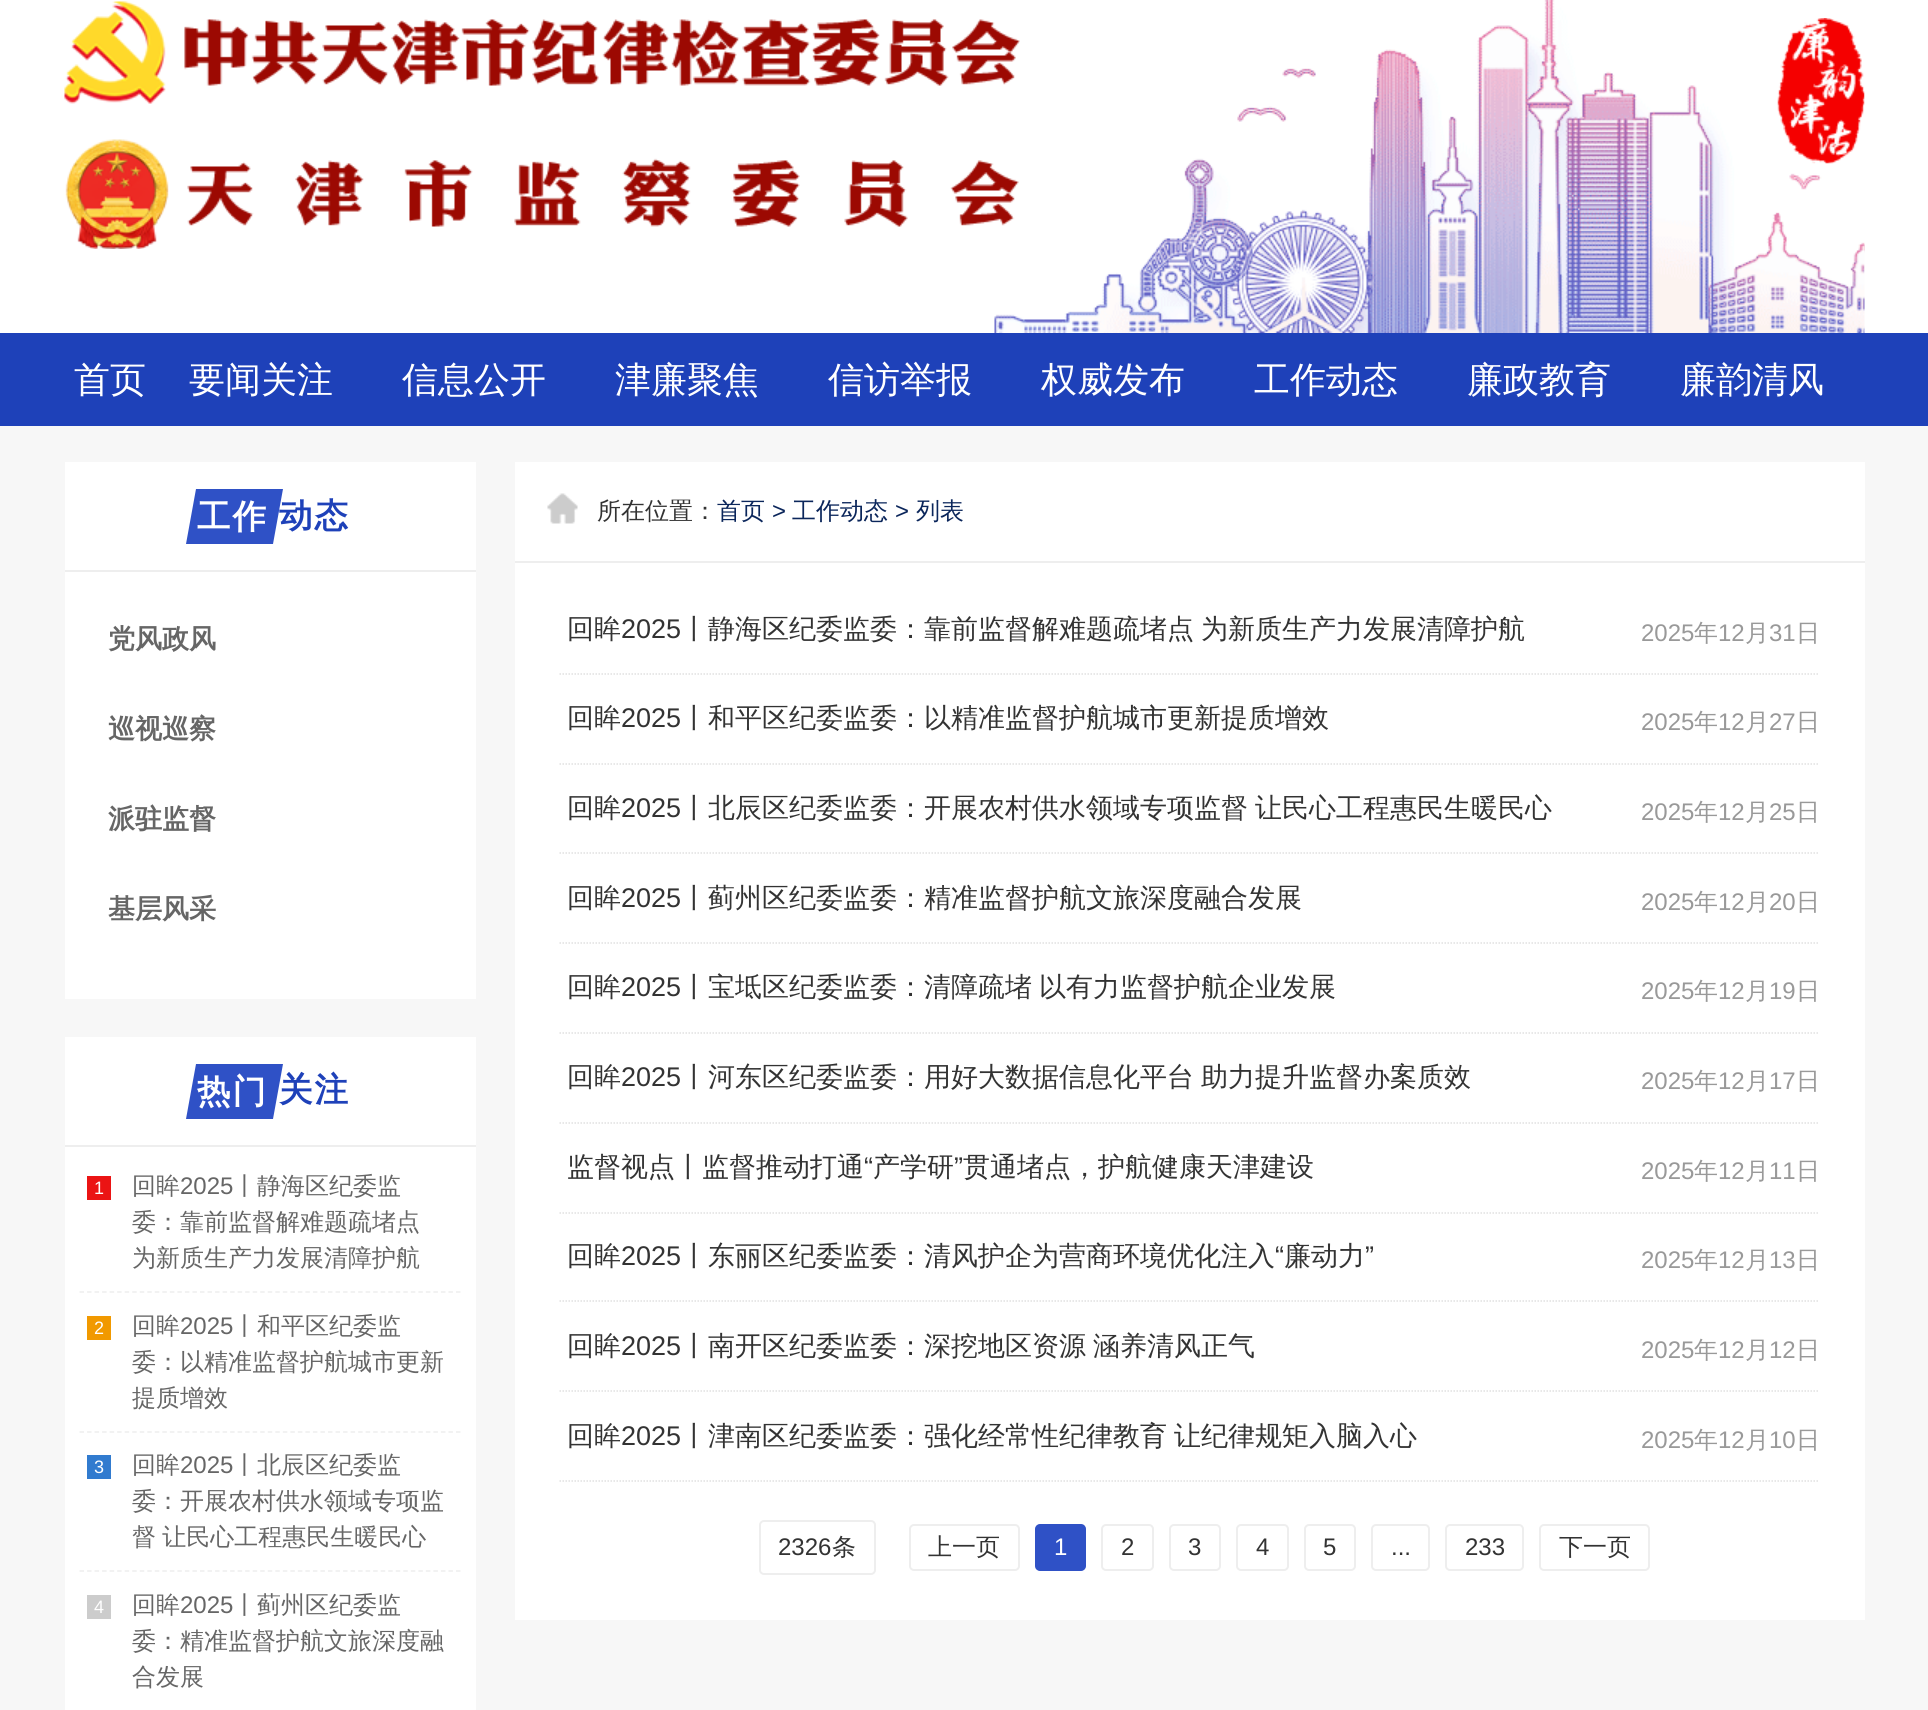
#include <cairo.h>
#include <math.h>
#include <stddef.h>


static void spaced_text(cairo_t *cr, double x, double y, const char *s, double letter, double word) {
    cairo_move_to(cr, x, y);
    while (*s) {
        char ch[5] = {0};
        int n = 0;
        do ch[n++] = *s++; while ((*s & 0xC0) == 0x80);
        cairo_show_text(cr, ch);
        cairo_rel_move_to(cr, letter + word * (*ch == ' '), 0);
    }
}

static void round_rect(cairo_t *cr, double x, double y, double w, double h, double r) {
    cairo_new_sub_path(cr);
    cairo_arc(cr, x + w - r, y + h - r, r, 0, M_PI / 2);
    cairo_arc(cr, x + r, y + h - r, r, M_PI / 2, M_PI);
    cairo_arc(cr, x + r, y + r, r, M_PI, 1.5 * M_PI);
    cairo_arc(cr, x + w - r, y + r, r, 1.5 * M_PI, 2 * M_PI);
    cairo_close_path(cr);
}

static void picture(cairo_t *cr, const char *path, double x, double y, double w, double h) {
    cairo_surface_t *image = cairo_image_surface_create_from_png(path);
    cairo_save(cr);
    cairo_set_source_surface(cr, image, x, y);
    cairo_rectangle(cr, x, y, w, h);
    cairo_fill(cr);
    cairo_restore(cr);
    cairo_surface_destroy(image);
}

int main(void) {
    cairo_surface_t *surface = cairo_image_surface_create(CAIRO_FORMAT_RGB24, 1928, 1710);
    cairo_t *cr = cairo_create(surface);
    cairo_font_options_t *options = cairo_font_options_create();
    cairo_font_options_set_hint_metrics(options, CAIRO_HINT_METRICS_OFF);
    cairo_font_options_set_hint_style(options, CAIRO_HINT_STYLE_NONE);
    cairo_set_font_options(cr, options);
    cairo_set_miter_limit(cr, 4);
    cairo_set_source_rgb(cr, 0.965, 0.965, 0.965);
    cairo_paint(cr);
    cairo_set_source_rgb(cr, 1, 1, 1);
    cairo_rectangle(cr, 0, 0, 1928, 333);
    cairo_fill(cr);
    picture(cr, "img3.png", 994, 0, 871, 333);
    picture(cr, "img1.png", 64, 1, 956, 103);
    picture(cr, "img2.png", 65, 139, 954, 110);
    picture(cr, "img4.png", 1777, 18, 88, 146);
    cairo_set_source_rgb(cr, 0.118, 0.255, 0.725);
    cairo_rectangle(cr, 0, 333, 1928, 93);
    cairo_fill(cr);
    cairo_select_font_face(cr, "WenQuanYi Zen Hei Medium", CAIRO_FONT_SLANT_NORMAL, CAIRO_FONT_WEIGHT_NORMAL);
    cairo_set_font_size(cr, 36);
    cairo_set_source_rgb(cr, 1, 1, 1);
    cairo_move_to(cr, 74, 392);
    cairo_show_text(cr, "首页");
    cairo_move_to(cr, 189, 392);
    cairo_show_text(cr, "要闻关注");
    cairo_move_to(cr, 402, 392);
    cairo_show_text(cr, "信息公开");
    cairo_move_to(cr, 615, 392);
    cairo_show_text(cr, "津廉聚焦");
    cairo_move_to(cr, 828, 392);
    cairo_show_text(cr, "信访举报");
    cairo_move_to(cr, 1041, 392);
    cairo_show_text(cr, "权威发布");
    cairo_move_to(cr, 1254, 392);
    cairo_show_text(cr, "工作动态");
    cairo_move_to(cr, 1467, 392);
    cairo_show_text(cr, "廉政教育");
    cairo_move_to(cr, 1680, 392);
    cairo_show_text(cr, "廉韵清风");
    cairo_rectangle(cr, 65, 462, 411, 537);
    cairo_fill(cr);
    cairo_set_source_rgb(cr, 0.933, 0.933, 0.933);
    cairo_rectangle(cr, 65, 570, 411, 2);
    cairo_fill(cr);
    cairo_select_font_face(cr, "WenQuanYi Zen Hei", CAIRO_FONT_SLANT_NORMAL, CAIRO_FONT_WEIGHT_BOLD);
    cairo_set_font_size(cr, 33.5);
    cairo_set_source_rgb(cr, 0.118, 0.255, 0.725);
    spaced_text(cr, 279, 527, "动态", 2, 0);
    cairo_set_source_rgb(cr, 0.184, 0.318, 0.776);
    cairo_new_path(cr);
    cairo_move_to(cr, 196, 489);
    cairo_line_to(cr, 283, 489);
    cairo_line_to(cr, 273, 544);
    cairo_line_to(cr, 186, 544);
    cairo_close_path(cr);
    cairo_fill(cr);
    cairo_set_source_rgb(cr, 1, 1, 1);
    spaced_text(cr, 197, 528, "工作", 2, 0);
    cairo_set_font_size(cr, 27);
    cairo_set_source_rgb(cr, 0.4, 0.4, 0.4);
    cairo_move_to(cr, 108, 648);
    cairo_show_text(cr, "党风政风");
    cairo_move_to(cr, 108, 738);
    cairo_show_text(cr, "巡视巡察");
    cairo_move_to(cr, 108, 828);
    cairo_show_text(cr, "派驻监督");
    cairo_move_to(cr, 108, 918);
    cairo_show_text(cr, "基层风采");
    cairo_set_source_rgb(cr, 1, 1, 1);
    cairo_rectangle(cr, 65, 1037, 411, 673);
    cairo_fill(cr);
    cairo_set_source_rgb(cr, 0.933, 0.933, 0.933);
    cairo_rectangle(cr, 65, 1145, 411, 2);
    cairo_fill(cr);
    cairo_set_font_size(cr, 33.5);
    cairo_set_source_rgb(cr, 0.118, 0.255, 0.725);
    spaced_text(cr, 279, 1101, "关注", 2, 0);
    cairo_set_source_rgb(cr, 0.184, 0.318, 0.776);
    cairo_new_path(cr);
    cairo_move_to(cr, 196, 1064);
    cairo_line_to(cr, 283, 1064);
    cairo_line_to(cr, 273, 1119);
    cairo_line_to(cr, 186, 1119);
    cairo_close_path(cr);
    cairo_fill(cr);
    cairo_set_source_rgb(cr, 1, 1, 1);
    spaced_text(cr, 197, 1103, "热门", 2, 0);
    cairo_new_path(cr);
    cairo_move_to(cr, 79.5, 1292);
    cairo_line_to(cr, 460.5, 1292);
    cairo_set_source_rgb(cr, 0.933, 0.933, 0.933);
    cairo_set_line_width(cr, 1.5);
    cairo_set_dash(cr, (double[]){4.5, 3.03}, 2, 0);
    cairo_stroke(cr);
    cairo_set_source_rgb(cr, 0.918, 0.082, 0.082);
    cairo_rectangle(cr, 87, 1176, 24, 24);
    cairo_fill(cr);
    cairo_select_font_face(cr, "Liberation Sans", CAIRO_FONT_SLANT_NORMAL, CAIRO_FONT_WEIGHT_NORMAL);
    cairo_set_font_size(cr, 18);
    cairo_set_source_rgb(cr, 1, 1, 1);
    cairo_move_to(cr, 94, 1194);
    cairo_show_text(cr, "1");
    cairo_select_font_face(cr, "WenQuanYi Zen Hei Medium", CAIRO_FONT_SLANT_NORMAL, CAIRO_FONT_WEIGHT_NORMAL);
    cairo_set_font_size(cr, 24);
    cairo_set_source_rgb(cr, 0.4, 0.4, 0.4);
    cairo_move_to(cr, 132, 1194);
    cairo_show_text(cr, "回眸");
    cairo_select_font_face(cr, "Liberation Sans", CAIRO_FONT_SLANT_NORMAL, CAIRO_FONT_WEIGHT_NORMAL);
    cairo_move_to(cr, 180, 1194);
    cairo_show_text(cr, "2025");
    cairo_select_font_face(cr, "WenQuanYi Zen Hei Medium", CAIRO_FONT_SLANT_NORMAL, CAIRO_FONT_WEIGHT_NORMAL);
    cairo_move_to(cr, 233, 1194);
    cairo_show_text(cr, "丨静海区纪委监");
    cairo_move_to(cr, 132, 1230);
    cairo_show_text(cr, "委：靠前监督解难题疏堵点");
    cairo_move_to(cr, 132, 1266);
    cairo_show_text(cr, "为新质生产力发展清障护航");
    cairo_new_path(cr);
    cairo_move_to(cr, 79.5, 1432);
    cairo_line_to(cr, 460.5, 1432);
    cairo_set_source_rgb(cr, 0.933, 0.933, 0.933);
    cairo_stroke(cr);
    cairo_set_source_rgb(cr, 0.945, 0.6, 0);
    cairo_rectangle(cr, 87, 1316, 24, 24);
    cairo_fill(cr);
    cairo_select_font_face(cr, "Liberation Sans", CAIRO_FONT_SLANT_NORMAL, CAIRO_FONT_WEIGHT_NORMAL);
    cairo_set_font_size(cr, 18);
    cairo_set_source_rgb(cr, 1, 1, 1);
    cairo_move_to(cr, 94, 1334);
    cairo_show_text(cr, "2");
    cairo_select_font_face(cr, "WenQuanYi Zen Hei Medium", CAIRO_FONT_SLANT_NORMAL, CAIRO_FONT_WEIGHT_NORMAL);
    cairo_set_font_size(cr, 24);
    cairo_set_source_rgb(cr, 0.4, 0.4, 0.4);
    cairo_move_to(cr, 132, 1334);
    cairo_show_text(cr, "回眸");
    cairo_select_font_face(cr, "Liberation Sans", CAIRO_FONT_SLANT_NORMAL, CAIRO_FONT_WEIGHT_NORMAL);
    cairo_move_to(cr, 180, 1334);
    cairo_show_text(cr, "2025");
    cairo_select_font_face(cr, "WenQuanYi Zen Hei Medium", CAIRO_FONT_SLANT_NORMAL, CAIRO_FONT_WEIGHT_NORMAL);
    cairo_move_to(cr, 233, 1334);
    cairo_show_text(cr, "丨和平区纪委监");
    cairo_move_to(cr, 132, 1370);
    cairo_show_text(cr, "委：以精准监督护航城市更新");
    cairo_move_to(cr, 132, 1406);
    cairo_show_text(cr, "提质增效");
    cairo_new_path(cr);
    cairo_move_to(cr, 79.5, 1571);
    cairo_line_to(cr, 460.5, 1571);
    cairo_set_source_rgb(cr, 0.933, 0.933, 0.933);
    cairo_stroke(cr);
    cairo_set_source_rgb(cr, 0.192, 0.482, 0.812);
    cairo_rectangle(cr, 87, 1455, 24, 24);
    cairo_fill(cr);
    cairo_select_font_face(cr, "Liberation Sans", CAIRO_FONT_SLANT_NORMAL, CAIRO_FONT_WEIGHT_NORMAL);
    cairo_set_font_size(cr, 18);
    cairo_set_source_rgb(cr, 1, 1, 1);
    cairo_move_to(cr, 94, 1473);
    cairo_show_text(cr, "3");
    cairo_select_font_face(cr, "WenQuanYi Zen Hei Medium", CAIRO_FONT_SLANT_NORMAL, CAIRO_FONT_WEIGHT_NORMAL);
    cairo_set_font_size(cr, 24);
    cairo_set_source_rgb(cr, 0.4, 0.4, 0.4);
    cairo_move_to(cr, 132, 1473);
    cairo_show_text(cr, "回眸");
    cairo_select_font_face(cr, "Liberation Sans", CAIRO_FONT_SLANT_NORMAL, CAIRO_FONT_WEIGHT_NORMAL);
    cairo_move_to(cr, 180, 1473);
    cairo_show_text(cr, "2025");
    cairo_select_font_face(cr, "WenQuanYi Zen Hei Medium", CAIRO_FONT_SLANT_NORMAL, CAIRO_FONT_WEIGHT_NORMAL);
    cairo_move_to(cr, 233, 1473);
    cairo_show_text(cr, "丨北辰区纪委监");
    cairo_move_to(cr, 132, 1509);
    cairo_show_text(cr, "委：开展农村供水领域专项监");
    spaced_text(cr, 132, 1545, "督 让民心工程惠民生暖民心", 0, -1);
    cairo_set_source_rgb(cr, 0.8, 0.8, 0.8);
    cairo_rectangle(cr, 87, 1595, 24, 24);
    cairo_fill(cr);
    cairo_select_font_face(cr, "Liberation Sans", CAIRO_FONT_SLANT_NORMAL, CAIRO_FONT_WEIGHT_NORMAL);
    cairo_set_font_size(cr, 18);
    cairo_set_source_rgb(cr, 1, 1, 1);
    cairo_move_to(cr, 94, 1613);
    cairo_show_text(cr, "4");
    cairo_select_font_face(cr, "WenQuanYi Zen Hei Medium", CAIRO_FONT_SLANT_NORMAL, CAIRO_FONT_WEIGHT_NORMAL);
    cairo_set_font_size(cr, 24);
    cairo_set_source_rgb(cr, 0.4, 0.4, 0.4);
    cairo_move_to(cr, 132, 1613);
    cairo_show_text(cr, "回眸");
    cairo_select_font_face(cr, "Liberation Sans", CAIRO_FONT_SLANT_NORMAL, CAIRO_FONT_WEIGHT_NORMAL);
    cairo_move_to(cr, 180, 1613);
    cairo_show_text(cr, "2025");
    cairo_select_font_face(cr, "WenQuanYi Zen Hei Medium", CAIRO_FONT_SLANT_NORMAL, CAIRO_FONT_WEIGHT_NORMAL);
    cairo_move_to(cr, 233, 1613);
    cairo_show_text(cr, "丨蓟州区纪委监");
    cairo_move_to(cr, 132, 1649);
    cairo_show_text(cr, "委：精准监督护航文旅深度融");
    cairo_move_to(cr, 132, 1685);
    cairo_show_text(cr, "合发展");
    cairo_set_source_rgb(cr, 1, 1, 1);
    cairo_rectangle(cr, 515, 462, 1350, 1158);
    cairo_fill(cr);
    picture(cr, "img5.png", 547, 493, 31, 31);
    cairo_set_source_rgb(cr, 0.933, 0.933, 0.933);
    cairo_rectangle(cr, 515, 561, 1350, 2);
    cairo_fill(cr);
    cairo_set_source_rgb(cr, 0.2, 0.2, 0.2);
    cairo_move_to(cr, 597, 519);
    cairo_show_text(cr, "所在位置：");
    cairo_set_source_rgb(cr, 0.043, 0.149, 0.357);
    cairo_move_to(cr, 717, 519);
    cairo_show_text(cr, "首页");
    cairo_select_font_face(cr, "Liberation Sans", CAIRO_FONT_SLANT_NORMAL, CAIRO_FONT_WEIGHT_NORMAL);
    cairo_move_to(cr, 772, 519);
    cairo_show_text(cr, ">");
    cairo_select_font_face(cr, "WenQuanYi Zen Hei Medium", CAIRO_FONT_SLANT_NORMAL, CAIRO_FONT_WEIGHT_NORMAL);
    cairo_move_to(cr, 792, 519);
    cairo_show_text(cr, "工作动态");
    cairo_select_font_face(cr, "Liberation Sans", CAIRO_FONT_SLANT_NORMAL, CAIRO_FONT_WEIGHT_NORMAL);
    cairo_move_to(cr, 895, 519);
    cairo_show_text(cr, ">");
    cairo_select_font_face(cr, "WenQuanYi Zen Hei Medium", CAIRO_FONT_SLANT_NORMAL, CAIRO_FONT_WEIGHT_NORMAL);
    cairo_move_to(cr, 916, 519);
    cairo_show_text(cr, "列表");
    cairo_new_path(cr);
    cairo_move_to(cr, 559.5, 674);
    cairo_line_to(cr, 1819.5, 674);
    cairo_set_source_rgb(cr, 0.878, 0.878, 0.878);
    cairo_set_dash(cr, (double[]){1.5, 1.5}, 2, 0);
    cairo_stroke(cr);
    cairo_set_font_size(cr, 27);
    cairo_set_source_rgb(cr, 0.2, 0.2, 0.2);
    cairo_move_to(cr, 567, 638);
    cairo_show_text(cr, "回眸");
    cairo_select_font_face(cr, "Liberation Sans", CAIRO_FONT_SLANT_NORMAL, CAIRO_FONT_WEIGHT_NORMAL);
    cairo_move_to(cr, 621, 638);
    cairo_show_text(cr, "2025");
    cairo_select_font_face(cr, "WenQuanYi Zen Hei Medium", CAIRO_FONT_SLANT_NORMAL, CAIRO_FONT_WEIGHT_NORMAL);
    spaced_text(cr, 681, 638, "丨静海区纪委监委：靠前监督解难题疏堵点 为新质生产力发展清障护航", 0, -1);
    cairo_select_font_face(cr, "Liberation Sans", CAIRO_FONT_SLANT_NORMAL, CAIRO_FONT_WEIGHT_NORMAL);
    cairo_set_font_size(cr, 24);
    cairo_set_source_rgb(cr, 0.6, 0.6, 0.6);
    cairo_move_to(cr, 1641, 641);
    cairo_show_text(cr, "2025");
    cairo_select_font_face(cr, "WenQuanYi Zen Hei Medium", CAIRO_FONT_SLANT_NORMAL, CAIRO_FONT_WEIGHT_NORMAL);
    cairo_move_to(cr, 1694, 641);
    cairo_show_text(cr, "年");
    cairo_select_font_face(cr, "Liberation Sans", CAIRO_FONT_SLANT_NORMAL, CAIRO_FONT_WEIGHT_NORMAL);
    cairo_move_to(cr, 1718, 641);
    cairo_show_text(cr, "12");
    cairo_select_font_face(cr, "WenQuanYi Zen Hei Medium", CAIRO_FONT_SLANT_NORMAL, CAIRO_FONT_WEIGHT_NORMAL);
    cairo_move_to(cr, 1745, 641);
    cairo_show_text(cr, "月");
    cairo_select_font_face(cr, "Liberation Sans", CAIRO_FONT_SLANT_NORMAL, CAIRO_FONT_WEIGHT_NORMAL);
    cairo_move_to(cr, 1769, 641);
    cairo_show_text(cr, "31");
    cairo_select_font_face(cr, "WenQuanYi Zen Hei Medium", CAIRO_FONT_SLANT_NORMAL, CAIRO_FONT_WEIGHT_NORMAL);
    cairo_move_to(cr, 1796, 641);
    cairo_show_text(cr, "日");
    cairo_new_path(cr);
    cairo_move_to(cr, 559.5, 764);
    cairo_line_to(cr, 1819.5, 764);
    cairo_set_source_rgb(cr, 0.878, 0.878, 0.878);
    cairo_stroke(cr);
    cairo_set_font_size(cr, 27);
    cairo_set_source_rgb(cr, 0.2, 0.2, 0.2);
    cairo_move_to(cr, 567, 727);
    cairo_show_text(cr, "回眸");
    cairo_select_font_face(cr, "Liberation Sans", CAIRO_FONT_SLANT_NORMAL, CAIRO_FONT_WEIGHT_NORMAL);
    cairo_move_to(cr, 621, 727);
    cairo_show_text(cr, "2025");
    cairo_select_font_face(cr, "WenQuanYi Zen Hei Medium", CAIRO_FONT_SLANT_NORMAL, CAIRO_FONT_WEIGHT_NORMAL);
    cairo_move_to(cr, 681, 727);
    cairo_show_text(cr, "丨和平区纪委监委：以精准监督护航城市更新提质增效");
    cairo_select_font_face(cr, "Liberation Sans", CAIRO_FONT_SLANT_NORMAL, CAIRO_FONT_WEIGHT_NORMAL);
    cairo_set_font_size(cr, 24);
    cairo_set_source_rgb(cr, 0.6, 0.6, 0.6);
    cairo_move_to(cr, 1641, 730);
    cairo_show_text(cr, "2025");
    cairo_select_font_face(cr, "WenQuanYi Zen Hei Medium", CAIRO_FONT_SLANT_NORMAL, CAIRO_FONT_WEIGHT_NORMAL);
    cairo_move_to(cr, 1694, 730);
    cairo_show_text(cr, "年");
    cairo_select_font_face(cr, "Liberation Sans", CAIRO_FONT_SLANT_NORMAL, CAIRO_FONT_WEIGHT_NORMAL);
    cairo_move_to(cr, 1718, 730);
    cairo_show_text(cr, "12");
    cairo_select_font_face(cr, "WenQuanYi Zen Hei Medium", CAIRO_FONT_SLANT_NORMAL, CAIRO_FONT_WEIGHT_NORMAL);
    cairo_move_to(cr, 1745, 730);
    cairo_show_text(cr, "月");
    cairo_select_font_face(cr, "Liberation Sans", CAIRO_FONT_SLANT_NORMAL, CAIRO_FONT_WEIGHT_NORMAL);
    cairo_move_to(cr, 1769, 730);
    cairo_show_text(cr, "27");
    cairo_select_font_face(cr, "WenQuanYi Zen Hei Medium", CAIRO_FONT_SLANT_NORMAL, CAIRO_FONT_WEIGHT_NORMAL);
    cairo_move_to(cr, 1796, 730);
    cairo_show_text(cr, "日");
    cairo_new_path(cr);
    cairo_move_to(cr, 559.5, 853);
    cairo_line_to(cr, 1819.5, 853);
    cairo_set_source_rgb(cr, 0.878, 0.878, 0.878);
    cairo_stroke(cr);
    cairo_set_font_size(cr, 27);
    cairo_set_source_rgb(cr, 0.2, 0.2, 0.2);
    cairo_move_to(cr, 567, 817);
    cairo_show_text(cr, "回眸");
    cairo_select_font_face(cr, "Liberation Sans", CAIRO_FONT_SLANT_NORMAL, CAIRO_FONT_WEIGHT_NORMAL);
    cairo_move_to(cr, 621, 817);
    cairo_show_text(cr, "2025");
    cairo_select_font_face(cr, "WenQuanYi Zen Hei Medium", CAIRO_FONT_SLANT_NORMAL, CAIRO_FONT_WEIGHT_NORMAL);
    spaced_text(cr, 681, 817, "丨北辰区纪委监委：开展农村供水领域专项监督 让民心工程惠民生暖民心", 0, -1);
    cairo_select_font_face(cr, "Liberation Sans", CAIRO_FONT_SLANT_NORMAL, CAIRO_FONT_WEIGHT_NORMAL);
    cairo_set_font_size(cr, 24);
    cairo_set_source_rgb(cr, 0.6, 0.6, 0.6);
    cairo_move_to(cr, 1641, 820);
    cairo_show_text(cr, "2025");
    cairo_select_font_face(cr, "WenQuanYi Zen Hei Medium", CAIRO_FONT_SLANT_NORMAL, CAIRO_FONT_WEIGHT_NORMAL);
    cairo_move_to(cr, 1694, 820);
    cairo_show_text(cr, "年");
    cairo_select_font_face(cr, "Liberation Sans", CAIRO_FONT_SLANT_NORMAL, CAIRO_FONT_WEIGHT_NORMAL);
    cairo_move_to(cr, 1718, 820);
    cairo_show_text(cr, "12");
    cairo_select_font_face(cr, "WenQuanYi Zen Hei Medium", CAIRO_FONT_SLANT_NORMAL, CAIRO_FONT_WEIGHT_NORMAL);
    cairo_move_to(cr, 1745, 820);
    cairo_show_text(cr, "月");
    cairo_select_font_face(cr, "Liberation Sans", CAIRO_FONT_SLANT_NORMAL, CAIRO_FONT_WEIGHT_NORMAL);
    cairo_move_to(cr, 1769, 820);
    cairo_show_text(cr, "25");
    cairo_select_font_face(cr, "WenQuanYi Zen Hei Medium", CAIRO_FONT_SLANT_NORMAL, CAIRO_FONT_WEIGHT_NORMAL);
    cairo_move_to(cr, 1796, 820);
    cairo_show_text(cr, "日");
    cairo_new_path(cr);
    cairo_move_to(cr, 559.5, 943);
    cairo_line_to(cr, 1819.5, 943);
    cairo_set_source_rgb(cr, 0.878, 0.878, 0.878);
    cairo_stroke(cr);
    cairo_set_font_size(cr, 27);
    cairo_set_source_rgb(cr, 0.2, 0.2, 0.2);
    cairo_move_to(cr, 567, 907);
    cairo_show_text(cr, "回眸");
    cairo_select_font_face(cr, "Liberation Sans", CAIRO_FONT_SLANT_NORMAL, CAIRO_FONT_WEIGHT_NORMAL);
    cairo_move_to(cr, 621, 907);
    cairo_show_text(cr, "2025");
    cairo_select_font_face(cr, "WenQuanYi Zen Hei Medium", CAIRO_FONT_SLANT_NORMAL, CAIRO_FONT_WEIGHT_NORMAL);
    cairo_move_to(cr, 681, 907);
    cairo_show_text(cr, "丨蓟州区纪委监委：精准监督护航文旅深度融合发展");
    cairo_select_font_face(cr, "Liberation Sans", CAIRO_FONT_SLANT_NORMAL, CAIRO_FONT_WEIGHT_NORMAL);
    cairo_set_font_size(cr, 24);
    cairo_set_source_rgb(cr, 0.6, 0.6, 0.6);
    cairo_move_to(cr, 1641, 910);
    cairo_show_text(cr, "2025");
    cairo_select_font_face(cr, "WenQuanYi Zen Hei Medium", CAIRO_FONT_SLANT_NORMAL, CAIRO_FONT_WEIGHT_NORMAL);
    cairo_move_to(cr, 1694, 910);
    cairo_show_text(cr, "年");
    cairo_select_font_face(cr, "Liberation Sans", CAIRO_FONT_SLANT_NORMAL, CAIRO_FONT_WEIGHT_NORMAL);
    cairo_move_to(cr, 1718, 910);
    cairo_show_text(cr, "12");
    cairo_select_font_face(cr, "WenQuanYi Zen Hei Medium", CAIRO_FONT_SLANT_NORMAL, CAIRO_FONT_WEIGHT_NORMAL);
    cairo_move_to(cr, 1745, 910);
    cairo_show_text(cr, "月");
    cairo_select_font_face(cr, "Liberation Sans", CAIRO_FONT_SLANT_NORMAL, CAIRO_FONT_WEIGHT_NORMAL);
    cairo_move_to(cr, 1769, 910);
    cairo_show_text(cr, "20");
    cairo_select_font_face(cr, "WenQuanYi Zen Hei Medium", CAIRO_FONT_SLANT_NORMAL, CAIRO_FONT_WEIGHT_NORMAL);
    cairo_move_to(cr, 1796, 910);
    cairo_show_text(cr, "日");
    cairo_new_path(cr);
    cairo_move_to(cr, 559.5, 1033);
    cairo_line_to(cr, 1819.5, 1033);
    cairo_set_source_rgb(cr, 0.878, 0.878, 0.878);
    cairo_stroke(cr);
    cairo_set_font_size(cr, 27);
    cairo_set_source_rgb(cr, 0.2, 0.2, 0.2);
    cairo_move_to(cr, 567, 996);
    cairo_show_text(cr, "回眸");
    cairo_select_font_face(cr, "Liberation Sans", CAIRO_FONT_SLANT_NORMAL, CAIRO_FONT_WEIGHT_NORMAL);
    cairo_move_to(cr, 621, 996);
    cairo_show_text(cr, "2025");
    cairo_select_font_face(cr, "WenQuanYi Zen Hei Medium", CAIRO_FONT_SLANT_NORMAL, CAIRO_FONT_WEIGHT_NORMAL);
    spaced_text(cr, 681, 996, "丨宝坻区纪委监委：清障疏堵 以有力监督护航企业发展", 0, -1);
    cairo_select_font_face(cr, "Liberation Sans", CAIRO_FONT_SLANT_NORMAL, CAIRO_FONT_WEIGHT_NORMAL);
    cairo_set_font_size(cr, 24);
    cairo_set_source_rgb(cr, 0.6, 0.6, 0.6);
    cairo_move_to(cr, 1641, 999);
    cairo_show_text(cr, "2025");
    cairo_select_font_face(cr, "WenQuanYi Zen Hei Medium", CAIRO_FONT_SLANT_NORMAL, CAIRO_FONT_WEIGHT_NORMAL);
    cairo_move_to(cr, 1694, 999);
    cairo_show_text(cr, "年");
    cairo_select_font_face(cr, "Liberation Sans", CAIRO_FONT_SLANT_NORMAL, CAIRO_FONT_WEIGHT_NORMAL);
    cairo_move_to(cr, 1718, 999);
    cairo_show_text(cr, "12");
    cairo_select_font_face(cr, "WenQuanYi Zen Hei Medium", CAIRO_FONT_SLANT_NORMAL, CAIRO_FONT_WEIGHT_NORMAL);
    cairo_move_to(cr, 1745, 999);
    cairo_show_text(cr, "月");
    cairo_select_font_face(cr, "Liberation Sans", CAIRO_FONT_SLANT_NORMAL, CAIRO_FONT_WEIGHT_NORMAL);
    cairo_move_to(cr, 1769, 999);
    cairo_show_text(cr, "19");
    cairo_select_font_face(cr, "WenQuanYi Zen Hei Medium", CAIRO_FONT_SLANT_NORMAL, CAIRO_FONT_WEIGHT_NORMAL);
    cairo_move_to(cr, 1796, 999);
    cairo_show_text(cr, "日");
    cairo_new_path(cr);
    cairo_move_to(cr, 559.5, 1123);
    cairo_line_to(cr, 1819.5, 1123);
    cairo_set_source_rgb(cr, 0.878, 0.878, 0.878);
    cairo_stroke(cr);
    cairo_set_font_size(cr, 27);
    cairo_set_source_rgb(cr, 0.2, 0.2, 0.2);
    cairo_move_to(cr, 567, 1086);
    cairo_show_text(cr, "回眸");
    cairo_select_font_face(cr, "Liberation Sans", CAIRO_FONT_SLANT_NORMAL, CAIRO_FONT_WEIGHT_NORMAL);
    cairo_move_to(cr, 621, 1086);
    cairo_show_text(cr, "2025");
    cairo_select_font_face(cr, "WenQuanYi Zen Hei Medium", CAIRO_FONT_SLANT_NORMAL, CAIRO_FONT_WEIGHT_NORMAL);
    spaced_text(cr, 681, 1086, "丨河东区纪委监委：用好大数据信息化平台 助力提升监督办案质效", 0, -1);
    cairo_select_font_face(cr, "Liberation Sans", CAIRO_FONT_SLANT_NORMAL, CAIRO_FONT_WEIGHT_NORMAL);
    cairo_set_font_size(cr, 24);
    cairo_set_source_rgb(cr, 0.6, 0.6, 0.6);
    cairo_move_to(cr, 1641, 1089);
    cairo_show_text(cr, "2025");
    cairo_select_font_face(cr, "WenQuanYi Zen Hei Medium", CAIRO_FONT_SLANT_NORMAL, CAIRO_FONT_WEIGHT_NORMAL);
    cairo_move_to(cr, 1694, 1089);
    cairo_show_text(cr, "年");
    cairo_select_font_face(cr, "Liberation Sans", CAIRO_FONT_SLANT_NORMAL, CAIRO_FONT_WEIGHT_NORMAL);
    cairo_move_to(cr, 1718, 1089);
    cairo_show_text(cr, "12");
    cairo_select_font_face(cr, "WenQuanYi Zen Hei Medium", CAIRO_FONT_SLANT_NORMAL, CAIRO_FONT_WEIGHT_NORMAL);
    cairo_move_to(cr, 1745, 1089);
    cairo_show_text(cr, "月");
    cairo_select_font_face(cr, "Liberation Sans", CAIRO_FONT_SLANT_NORMAL, CAIRO_FONT_WEIGHT_NORMAL);
    cairo_move_to(cr, 1769, 1089);
    cairo_show_text(cr, "17");
    cairo_select_font_face(cr, "WenQuanYi Zen Hei Medium", CAIRO_FONT_SLANT_NORMAL, CAIRO_FONT_WEIGHT_NORMAL);
    cairo_move_to(cr, 1796, 1089);
    cairo_show_text(cr, "日");
    cairo_new_path(cr);
    cairo_move_to(cr, 559.5, 1213);
    cairo_line_to(cr, 1819.5, 1213);
    cairo_set_source_rgb(cr, 0.878, 0.878, 0.878);
    cairo_stroke(cr);
    cairo_set_font_size(cr, 27);
    cairo_set_source_rgb(cr, 0.2, 0.2, 0.2);
    cairo_move_to(cr, 567, 1176);
    cairo_show_text(cr, "监督视点丨监督推动打通");
    cairo_select_font_face(cr, "Liberation Sans", CAIRO_FONT_SLANT_NORMAL, CAIRO_FONT_WEIGHT_NORMAL);
    cairo_move_to(cr, 864, 1176);
    cairo_show_text(cr, "“");
    cairo_select_font_face(cr, "WenQuanYi Zen Hei Medium", CAIRO_FONT_SLANT_NORMAL, CAIRO_FONT_WEIGHT_NORMAL);
    cairo_move_to(cr, 873, 1176);
    cairo_show_text(cr, "产学研");
    cairo_select_font_face(cr, "Liberation Sans", CAIRO_FONT_SLANT_NORMAL, CAIRO_FONT_WEIGHT_NORMAL);
    cairo_move_to(cr, 954, 1176);
    cairo_show_text(cr, "”");
    cairo_select_font_face(cr, "WenQuanYi Zen Hei Medium", CAIRO_FONT_SLANT_NORMAL, CAIRO_FONT_WEIGHT_NORMAL);
    cairo_move_to(cr, 963, 1176);
    cairo_show_text(cr, "贯通堵点，护航健康天津建设");
    cairo_select_font_face(cr, "Liberation Sans", CAIRO_FONT_SLANT_NORMAL, CAIRO_FONT_WEIGHT_NORMAL);
    cairo_set_font_size(cr, 24);
    cairo_set_source_rgb(cr, 0.6, 0.6, 0.6);
    cairo_move_to(cr, 1641, 1179);
    cairo_show_text(cr, "2025");
    cairo_select_font_face(cr, "WenQuanYi Zen Hei Medium", CAIRO_FONT_SLANT_NORMAL, CAIRO_FONT_WEIGHT_NORMAL);
    cairo_move_to(cr, 1694, 1179);
    cairo_show_text(cr, "年");
    cairo_select_font_face(cr, "Liberation Sans", CAIRO_FONT_SLANT_NORMAL, CAIRO_FONT_WEIGHT_NORMAL);
    cairo_move_to(cr, 1718, 1179);
    cairo_show_text(cr, "12");
    cairo_select_font_face(cr, "WenQuanYi Zen Hei Medium", CAIRO_FONT_SLANT_NORMAL, CAIRO_FONT_WEIGHT_NORMAL);
    cairo_move_to(cr, 1745, 1179);
    cairo_show_text(cr, "月");
    cairo_select_font_face(cr, "Liberation Sans", CAIRO_FONT_SLANT_NORMAL, CAIRO_FONT_WEIGHT_NORMAL);
    cairo_move_to(cr, 1769, 1179);
    cairo_show_text(cr, "11");
    cairo_select_font_face(cr, "WenQuanYi Zen Hei Medium", CAIRO_FONT_SLANT_NORMAL, CAIRO_FONT_WEIGHT_NORMAL);
    cairo_move_to(cr, 1796, 1179);
    cairo_show_text(cr, "日");
    cairo_new_path(cr);
    cairo_move_to(cr, 559.5, 1301);
    cairo_line_to(cr, 1819.5, 1301);
    cairo_set_source_rgb(cr, 0.878, 0.878, 0.878);
    cairo_stroke(cr);
    cairo_set_font_size(cr, 27);
    cairo_set_source_rgb(cr, 0.2, 0.2, 0.2);
    cairo_move_to(cr, 567, 1265);
    cairo_show_text(cr, "回眸");
    cairo_select_font_face(cr, "Liberation Sans", CAIRO_FONT_SLANT_NORMAL, CAIRO_FONT_WEIGHT_NORMAL);
    cairo_move_to(cr, 621, 1265);
    cairo_show_text(cr, "2025");
    cairo_select_font_face(cr, "WenQuanYi Zen Hei Medium", CAIRO_FONT_SLANT_NORMAL, CAIRO_FONT_WEIGHT_NORMAL);
    cairo_move_to(cr, 681, 1265);
    cairo_show_text(cr, "丨东丽区纪委监委：清风护企为营商环境优化注入");
    cairo_select_font_face(cr, "Liberation Sans", CAIRO_FONT_SLANT_NORMAL, CAIRO_FONT_WEIGHT_NORMAL);
    cairo_move_to(cr, 1275, 1265);
    cairo_show_text(cr, "“");
    cairo_select_font_face(cr, "WenQuanYi Zen Hei Medium", CAIRO_FONT_SLANT_NORMAL, CAIRO_FONT_WEIGHT_NORMAL);
    cairo_move_to(cr, 1284, 1265);
    cairo_show_text(cr, "廉动力");
    cairo_select_font_face(cr, "Liberation Sans", CAIRO_FONT_SLANT_NORMAL, CAIRO_FONT_WEIGHT_NORMAL);
    cairo_move_to(cr, 1365, 1265);
    cairo_show_text(cr, "”");
    cairo_set_font_size(cr, 24);
    cairo_set_source_rgb(cr, 0.6, 0.6, 0.6);
    cairo_move_to(cr, 1641, 1268);
    cairo_show_text(cr, "2025");
    cairo_select_font_face(cr, "WenQuanYi Zen Hei Medium", CAIRO_FONT_SLANT_NORMAL, CAIRO_FONT_WEIGHT_NORMAL);
    cairo_move_to(cr, 1694, 1268);
    cairo_show_text(cr, "年");
    cairo_select_font_face(cr, "Liberation Sans", CAIRO_FONT_SLANT_NORMAL, CAIRO_FONT_WEIGHT_NORMAL);
    cairo_move_to(cr, 1718, 1268);
    cairo_show_text(cr, "12");
    cairo_select_font_face(cr, "WenQuanYi Zen Hei Medium", CAIRO_FONT_SLANT_NORMAL, CAIRO_FONT_WEIGHT_NORMAL);
    cairo_move_to(cr, 1745, 1268);
    cairo_show_text(cr, "月");
    cairo_select_font_face(cr, "Liberation Sans", CAIRO_FONT_SLANT_NORMAL, CAIRO_FONT_WEIGHT_NORMAL);
    cairo_move_to(cr, 1769, 1268);
    cairo_show_text(cr, "13");
    cairo_select_font_face(cr, "WenQuanYi Zen Hei Medium", CAIRO_FONT_SLANT_NORMAL, CAIRO_FONT_WEIGHT_NORMAL);
    cairo_move_to(cr, 1796, 1268);
    cairo_show_text(cr, "日");
    cairo_new_path(cr);
    cairo_move_to(cr, 559.5, 1391);
    cairo_line_to(cr, 1819.5, 1391);
    cairo_set_source_rgb(cr, 0.878, 0.878, 0.878);
    cairo_stroke(cr);
    cairo_set_font_size(cr, 27);
    cairo_set_source_rgb(cr, 0.2, 0.2, 0.2);
    cairo_move_to(cr, 567, 1355);
    cairo_show_text(cr, "回眸");
    cairo_select_font_face(cr, "Liberation Sans", CAIRO_FONT_SLANT_NORMAL, CAIRO_FONT_WEIGHT_NORMAL);
    cairo_move_to(cr, 621, 1355);
    cairo_show_text(cr, "2025");
    cairo_select_font_face(cr, "WenQuanYi Zen Hei Medium", CAIRO_FONT_SLANT_NORMAL, CAIRO_FONT_WEIGHT_NORMAL);
    spaced_text(cr, 681, 1355, "丨南开区纪委监委：深挖地区资源 涵养清风正气", 0, -1);
    cairo_select_font_face(cr, "Liberation Sans", CAIRO_FONT_SLANT_NORMAL, CAIRO_FONT_WEIGHT_NORMAL);
    cairo_set_font_size(cr, 24);
    cairo_set_source_rgb(cr, 0.6, 0.6, 0.6);
    cairo_move_to(cr, 1641, 1358);
    cairo_show_text(cr, "2025");
    cairo_select_font_face(cr, "WenQuanYi Zen Hei Medium", CAIRO_FONT_SLANT_NORMAL, CAIRO_FONT_WEIGHT_NORMAL);
    cairo_move_to(cr, 1694, 1358);
    cairo_show_text(cr, "年");
    cairo_select_font_face(cr, "Liberation Sans", CAIRO_FONT_SLANT_NORMAL, CAIRO_FONT_WEIGHT_NORMAL);
    cairo_move_to(cr, 1718, 1358);
    cairo_show_text(cr, "12");
    cairo_select_font_face(cr, "WenQuanYi Zen Hei Medium", CAIRO_FONT_SLANT_NORMAL, CAIRO_FONT_WEIGHT_NORMAL);
    cairo_move_to(cr, 1745, 1358);
    cairo_show_text(cr, "月");
    cairo_select_font_face(cr, "Liberation Sans", CAIRO_FONT_SLANT_NORMAL, CAIRO_FONT_WEIGHT_NORMAL);
    cairo_move_to(cr, 1769, 1358);
    cairo_show_text(cr, "12");
    cairo_select_font_face(cr, "WenQuanYi Zen Hei Medium", CAIRO_FONT_SLANT_NORMAL, CAIRO_FONT_WEIGHT_NORMAL);
    cairo_move_to(cr, 1796, 1358);
    cairo_show_text(cr, "日");
    cairo_new_path(cr);
    cairo_move_to(cr, 559.5, 1481);
    cairo_line_to(cr, 1819.5, 1481);
    cairo_set_source_rgb(cr, 0.878, 0.878, 0.878);
    cairo_stroke(cr);
    cairo_set_font_size(cr, 27);
    cairo_set_source_rgb(cr, 0.2, 0.2, 0.2);
    cairo_move_to(cr, 567, 1445);
    cairo_show_text(cr, "回眸");
    cairo_select_font_face(cr, "Liberation Sans", CAIRO_FONT_SLANT_NORMAL, CAIRO_FONT_WEIGHT_NORMAL);
    cairo_move_to(cr, 621, 1445);
    cairo_show_text(cr, "2025");
    cairo_select_font_face(cr, "WenQuanYi Zen Hei Medium", CAIRO_FONT_SLANT_NORMAL, CAIRO_FONT_WEIGHT_NORMAL);
    spaced_text(cr, 681, 1445, "丨津南区纪委监委：强化经常性纪律教育 让纪律规矩入脑入心", 0, -1);
    cairo_select_font_face(cr, "Liberation Sans", CAIRO_FONT_SLANT_NORMAL, CAIRO_FONT_WEIGHT_NORMAL);
    cairo_set_font_size(cr, 24);
    cairo_set_source_rgb(cr, 0.6, 0.6, 0.6);
    cairo_move_to(cr, 1641, 1448);
    cairo_show_text(cr, "2025");
    cairo_select_font_face(cr, "WenQuanYi Zen Hei Medium", CAIRO_FONT_SLANT_NORMAL, CAIRO_FONT_WEIGHT_NORMAL);
    cairo_move_to(cr, 1694, 1448);
    cairo_show_text(cr, "年");
    cairo_select_font_face(cr, "Liberation Sans", CAIRO_FONT_SLANT_NORMAL, CAIRO_FONT_WEIGHT_NORMAL);
    cairo_move_to(cr, 1718, 1448);
    cairo_show_text(cr, "12");
    cairo_select_font_face(cr, "WenQuanYi Zen Hei Medium", CAIRO_FONT_SLANT_NORMAL, CAIRO_FONT_WEIGHT_NORMAL);
    cairo_move_to(cr, 1745, 1448);
    cairo_show_text(cr, "月");
    cairo_select_font_face(cr, "Liberation Sans", CAIRO_FONT_SLANT_NORMAL, CAIRO_FONT_WEIGHT_NORMAL);
    cairo_move_to(cr, 1769, 1448);
    cairo_show_text(cr, "10");
    cairo_select_font_face(cr, "WenQuanYi Zen Hei Medium", CAIRO_FONT_SLANT_NORMAL, CAIRO_FONT_WEIGHT_NORMAL);
    cairo_move_to(cr, 1796, 1448);
    cairo_show_text(cr, "日");
    round_rect(cr, 760, 1521, 115, 53, 4);
    cairo_set_source_rgb(cr, 0.933, 0.933, 0.933);
    cairo_set_line_width(cr, 2);
    cairo_set_dash(cr, NULL, 0, 0);
    cairo_stroke(cr);
    cairo_select_font_face(cr, "Liberation Sans", CAIRO_FONT_SLANT_NORMAL, CAIRO_FONT_WEIGHT_NORMAL);
    cairo_set_source_rgb(cr, 0.2, 0.2, 0.2);
    cairo_move_to(cr, 778, 1555);
    cairo_show_text(cr, "2326");
    cairo_select_font_face(cr, "WenQuanYi Zen Hei Medium", CAIRO_FONT_SLANT_NORMAL, CAIRO_FONT_WEIGHT_NORMAL);
    cairo_move_to(cr, 832, 1555);
    cairo_show_text(cr, "条");
    round_rect(cr, 910, 1525, 109, 45, 4);
    cairo_set_source_rgb(cr, 0.933, 0.933, 0.933);
    cairo_stroke(cr);
    cairo_set_source_rgb(cr, 0.2, 0.2, 0.2);
    cairo_move_to(cr, 928, 1555);
    cairo_show_text(cr, "上一页");
    cairo_set_source_rgb(cr, 0.184, 0.318, 0.776);
    round_rect(cr, 1036, 1525, 49, 45, 4);
    cairo_fill_preserve(cr);
    cairo_stroke(cr);
    cairo_select_font_face(cr, "Liberation Sans", CAIRO_FONT_SLANT_NORMAL, CAIRO_FONT_WEIGHT_NORMAL);
    cairo_set_source_rgb(cr, 1, 1, 1);
    cairo_move_to(cr, 1054, 1555);
    cairo_show_text(cr, "1");
    round_rect(cr, 1102, 1525, 51, 45, 4);
    cairo_set_source_rgb(cr, 0.933, 0.933, 0.933);
    cairo_stroke(cr);
    cairo_set_source_rgb(cr, 0.2, 0.2, 0.2);
    cairo_move_to(cr, 1121, 1555);
    cairo_show_text(cr, "2");
    round_rect(cr, 1170, 1525, 50, 45, 4);
    cairo_set_source_rgb(cr, 0.933, 0.933, 0.933);
    cairo_stroke(cr);
    cairo_set_source_rgb(cr, 0.2, 0.2, 0.2);
    cairo_move_to(cr, 1188, 1555);
    cairo_show_text(cr, "3");
    round_rect(cr, 1237, 1525, 51, 45, 4);
    cairo_set_source_rgb(cr, 0.933, 0.933, 0.933);
    cairo_stroke(cr);
    cairo_set_source_rgb(cr, 0.2, 0.2, 0.2);
    cairo_move_to(cr, 1256, 1555);
    cairo_show_text(cr, "4");
    round_rect(cr, 1305, 1525, 50, 45, 4);
    cairo_set_source_rgb(cr, 0.933, 0.933, 0.933);
    cairo_stroke(cr);
    cairo_set_source_rgb(cr, 0.2, 0.2, 0.2);
    cairo_move_to(cr, 1323, 1555);
    cairo_show_text(cr, "5");
    round_rect(cr, 1372, 1525, 57, 45, 4);
    cairo_set_source_rgb(cr, 0.933, 0.933, 0.933);
    cairo_stroke(cr);
    cairo_set_source_rgb(cr, 0.2, 0.2, 0.2);
    cairo_move_to(cr, 1391, 1555);
    cairo_show_text(cr, "...");
    round_rect(cr, 1446, 1525, 77, 45, 4);
    cairo_set_source_rgb(cr, 0.933, 0.933, 0.933);
    cairo_stroke(cr);
    cairo_set_source_rgb(cr, 0.2, 0.2, 0.2);
    cairo_move_to(cr, 1465, 1555);
    cairo_show_text(cr, "233");
    round_rect(cr, 1540, 1525, 109, 45, 4);
    cairo_set_source_rgb(cr, 0.933, 0.933, 0.933);
    cairo_stroke(cr);
    cairo_select_font_face(cr, "WenQuanYi Zen Hei Medium", CAIRO_FONT_SLANT_NORMAL, CAIRO_FONT_WEIGHT_NORMAL);
    cairo_set_source_rgb(cr, 0.2, 0.2, 0.2);
    cairo_move_to(cr, 1559, 1555);
    cairo_show_text(cr, "下一页");
    cairo_surface_write_to_png(surface, "page.png");
    cairo_font_options_destroy(options);
    cairo_destroy(cr);
    cairo_surface_destroy(surface);
    return 0;
}
